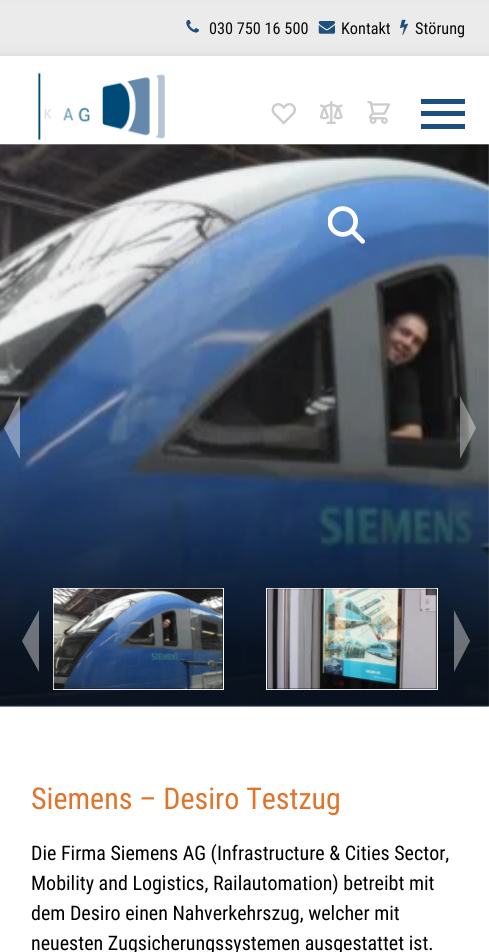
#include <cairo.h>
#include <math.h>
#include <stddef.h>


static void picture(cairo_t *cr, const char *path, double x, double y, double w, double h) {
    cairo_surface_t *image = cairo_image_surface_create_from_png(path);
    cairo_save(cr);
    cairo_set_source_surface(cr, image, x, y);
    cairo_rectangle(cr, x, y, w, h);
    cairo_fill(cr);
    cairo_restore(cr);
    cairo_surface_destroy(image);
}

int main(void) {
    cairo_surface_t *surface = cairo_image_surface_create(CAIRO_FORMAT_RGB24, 489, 952);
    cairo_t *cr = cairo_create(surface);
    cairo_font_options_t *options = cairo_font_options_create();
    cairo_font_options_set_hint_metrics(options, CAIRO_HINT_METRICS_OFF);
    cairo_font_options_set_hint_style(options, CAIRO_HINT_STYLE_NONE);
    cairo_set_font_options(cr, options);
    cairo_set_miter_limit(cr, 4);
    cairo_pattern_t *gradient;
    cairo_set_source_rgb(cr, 1, 1, 1);
    cairo_paint(cr);
    picture(cr, "img1.png", 0, 0, 489, 56);
    picture(cr, "img2.png", 186, 19, 13, 14);
    cairo_select_font_face(cr, "Roboto Condensed", CAIRO_FONT_SLANT_NORMAL, CAIRO_FONT_WEIGHT_NORMAL);
    cairo_set_font_size(cr, 16.25);
    cairo_set_source_rgb(cr, 0.039, 0.039, 0.039);
    cairo_move_to(cr, 209, 34);
    cairo_show_text(cr, "030 750 16 500");
    picture(cr, "img3.png", 318, 21, 17, 13);
    cairo_move_to(cr, 341, 34);
    cairo_show_text(cr, "Kontakt");
    picture(cr, "img4.png", 400, 19, 9, 16);
    cairo_move_to(cr, 415, 34);
    cairo_show_text(cr, "Störung");
    cairo_set_source_rgb(cr, 0.106, 0.31, 0.502);
    cairo_rectangle(cr, 421, 99, 44, 5);
    cairo_fill(cr);
    cairo_rectangle(cr, 421, 111, 44, 5);
    cairo_fill(cr);
    cairo_rectangle(cr, 421, 124, 44, 5);
    cairo_fill(cr);
    picture(cr, "img5.png", 38, 72, 127, 69);
    picture(cr, "img6.png", 271, 103, 25, 22);
    picture(cr, "img7.png", 319, 101, 24, 23);
    picture(cr, "img8.png", 367, 101, 24, 23);
    picture(cr, "img9.png", 0, 144, 489, 563);
    gradient = cairo_pattern_create_linear(245, 706, 245, 144);
    cairo_pattern_add_color_stop_rgba(gradient, 0.1, 0, 0, 0, 0.7);
    cairo_pattern_add_color_stop_rgba(gradient, 0.3, 0, 0, 0, 0.3);
    cairo_pattern_add_color_stop_rgba(gradient, 0.5, 0, 0, 0, 0.05);
    cairo_set_source(cr, gradient);
    cairo_pattern_destroy(gradient);
    cairo_rectangle(cr, 0, 144, 489, 562);
    cairo_fill(cr);
    picture(cr, "img10.png", 328, 206, 37, 38);
    cairo_set_source_rgba(cr, 1, 1, 1, 0.4);
    cairo_new_path(cr);
    cairo_move_to(cr, 20, 396);
    cairo_line_to(cr, 20, 459);
    cairo_line_to(cr, 4, 428);
    cairo_close_path(cr);
    cairo_fill(cr);
    cairo_new_path(cr);
    cairo_move_to(cr, 460, 459);
    cairo_line_to(cr, 460, 396);
    cairo_line_to(cr, 476, 428);
    cairo_close_path(cr);
    cairo_fill(cr);
    cairo_new_path(cr);
    cairo_move_to(cr, 39, 610);
    cairo_line_to(cr, 39, 672);
    cairo_line_to(cr, 22, 641);
    cairo_close_path(cr);
    cairo_fill(cr);
    cairo_rectangle(cr, 53.5, 588.5, 170, 101);
    cairo_set_source_rgb(cr, 1, 1, 1);
    cairo_set_line_width(cr, 1);
    cairo_stroke(cr);
    picture(cr, "img11.png", 53, 588, 170, 102);
    cairo_rectangle(cr, 266.5, 588.5, 171, 101);
    cairo_stroke(cr);
    picture(cr, "img12.png", 266, 588, 171, 102);
    cairo_set_source_rgba(cr, 1, 1, 1, 0.4);
    cairo_new_path(cr);
    cairo_move_to(cr, 454, 672);
    cairo_line_to(cr, 454, 610);
    cairo_line_to(cr, 470, 641);
    cairo_close_path(cr);
    cairo_fill(cr);
    cairo_set_font_size(cr, 30);
    cairo_set_source_rgb(cr, 0.886, 0.451, 0.165);
    cairo_move_to(cr, 31, 809);
    cairo_show_text(cr, "Siemens – Desiro Testzug");
    cairo_set_font_size(cr, 20);
    cairo_set_source_rgb(cr, 0, 0, 0);
    cairo_move_to(cr, 31, 860);
    cairo_show_text(cr, "Die Firma Siemens AG (Infrastructure & Cities Sector,");
    cairo_move_to(cr, 31, 890);
    cairo_show_text(cr, "Mobility and Logistics, Railautomation) betreibt mit");
    cairo_move_to(cr, 31, 920);
    cairo_show_text(cr, "dem Desiro einen Nahverkehrszug, welcher mit");
    cairo_move_to(cr, 31, 950);
    cairo_show_text(cr, "neuesten Zugsicherungssystemen ausgestattet ist.");
    cairo_surface_write_to_png(surface, "page.png");
    cairo_font_options_destroy(options);
    cairo_destroy(cr);
    cairo_surface_destroy(surface);
    return 0;
}
